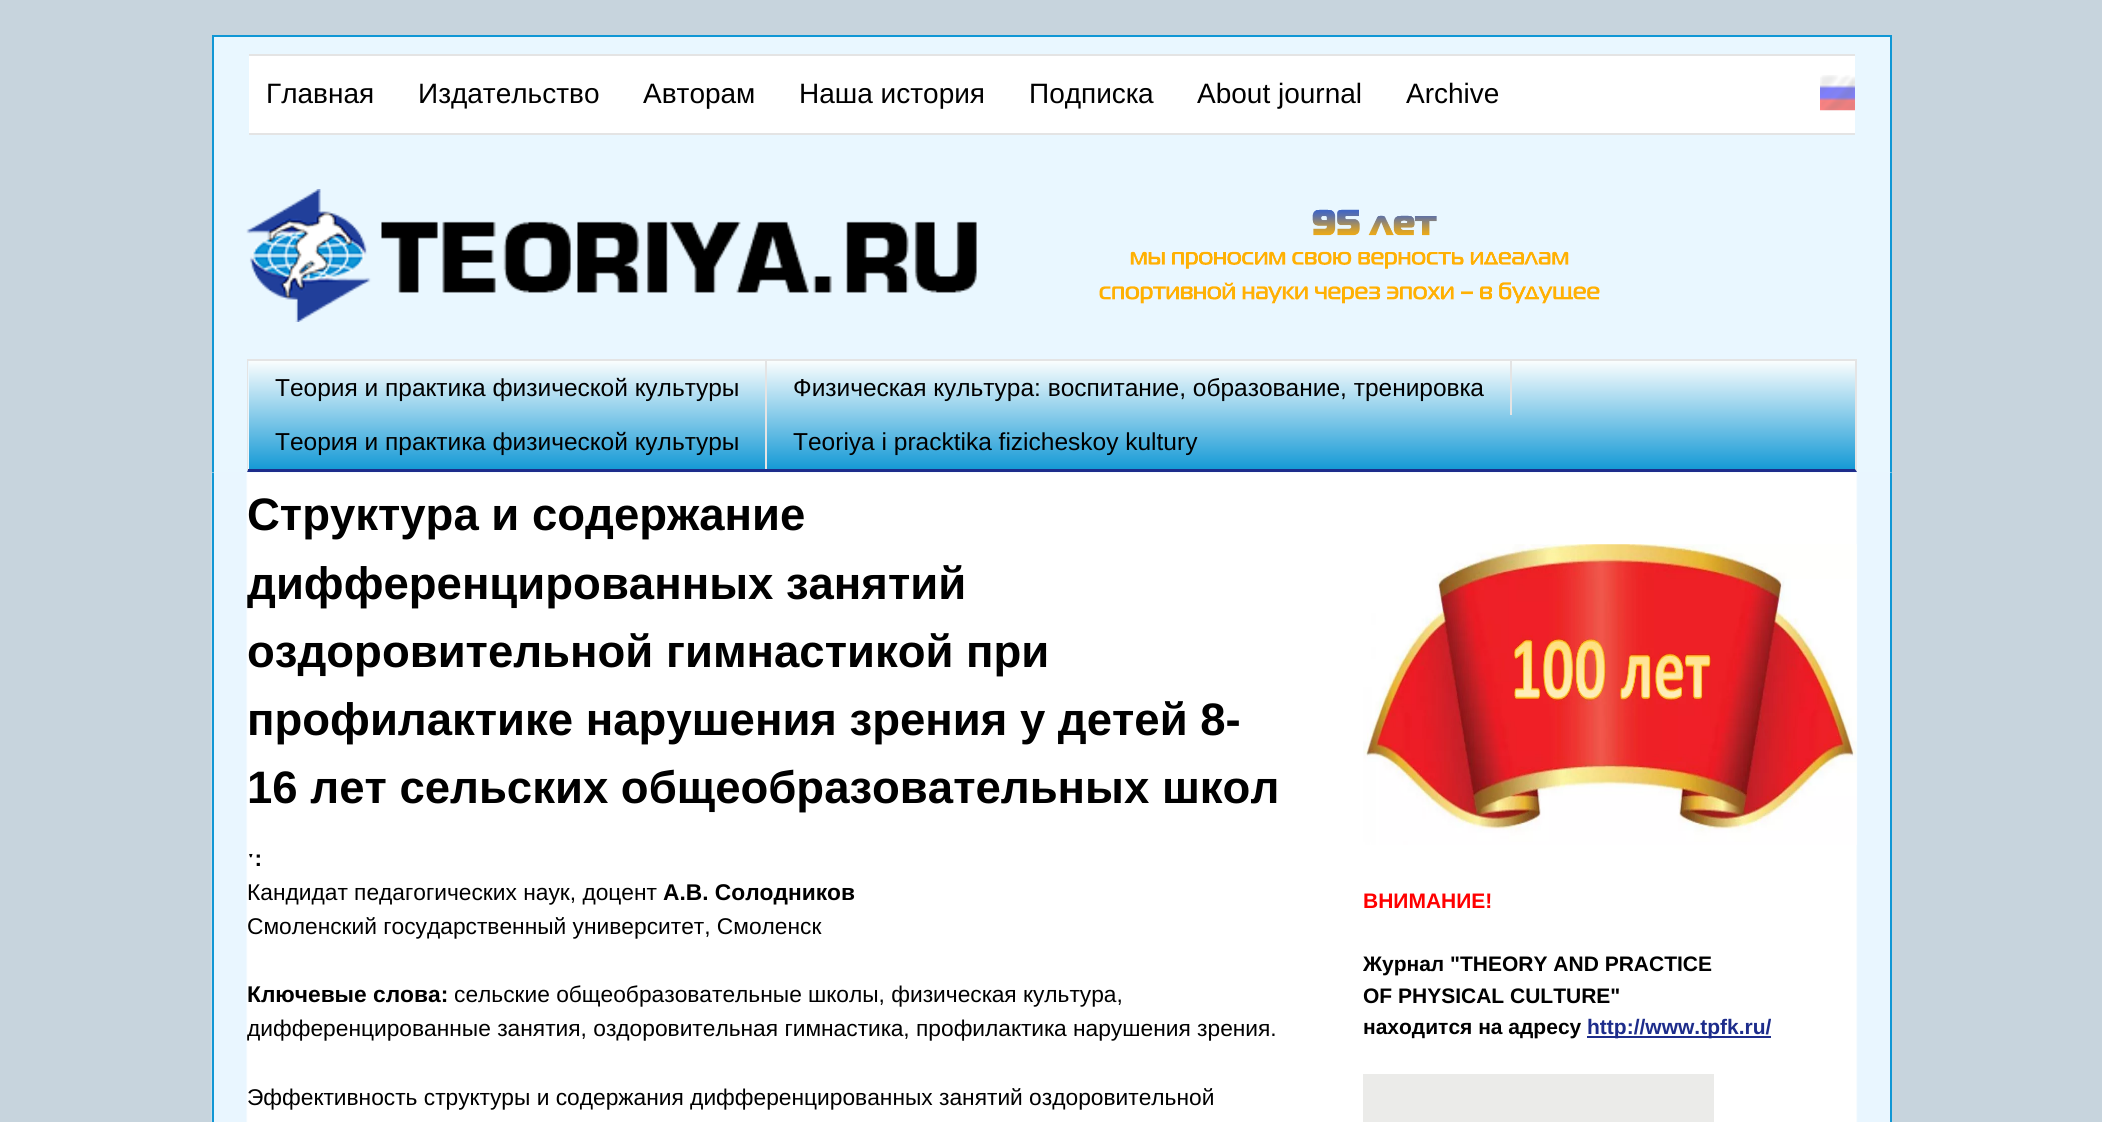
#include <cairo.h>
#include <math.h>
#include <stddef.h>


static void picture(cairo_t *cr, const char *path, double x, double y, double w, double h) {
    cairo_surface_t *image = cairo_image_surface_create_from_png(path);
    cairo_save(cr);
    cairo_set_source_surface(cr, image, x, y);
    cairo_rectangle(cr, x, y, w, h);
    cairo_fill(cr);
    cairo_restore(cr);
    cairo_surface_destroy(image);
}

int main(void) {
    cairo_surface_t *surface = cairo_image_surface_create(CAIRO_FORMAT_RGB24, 2102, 1122);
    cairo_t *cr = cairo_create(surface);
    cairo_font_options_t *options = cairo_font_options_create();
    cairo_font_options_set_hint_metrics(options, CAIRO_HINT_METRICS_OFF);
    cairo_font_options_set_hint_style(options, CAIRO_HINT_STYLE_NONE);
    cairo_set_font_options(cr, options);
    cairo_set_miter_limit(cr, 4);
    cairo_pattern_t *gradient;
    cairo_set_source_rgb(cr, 0.78, 0.831, 0.867);
    cairo_paint(cr);
    cairo_set_source_rgb(cr, 0.914, 0.965, 1);
    cairo_rectangle(cr, 214, 37, 1676, 436);
    cairo_fill(cr);
    cairo_set_source_rgb(cr, 0.063, 0.592, 0.835);
    cairo_rectangle(cr, 212, 35, 1680, 2);
    cairo_fill(cr);
    cairo_rectangle(cr, 1890, 35, 2, 438);
    cairo_fill(cr);
    cairo_rectangle(cr, 212, 35, 2, 438);
    cairo_fill(cr);
    cairo_set_source_rgb(cr, 1, 1, 1);
    cairo_rectangle(cr, 249, 56, 1606, 77);
    cairo_fill(cr);
    cairo_set_source_rgb(cr, 0.894, 0.894, 0.894);
    cairo_rectangle(cr, 249, 54, 1606, 2);
    cairo_fill(cr);
    cairo_rectangle(cr, 249, 133, 1606, 2);
    cairo_fill(cr);
    cairo_select_font_face(cr, "Liberation Sans", CAIRO_FONT_SLANT_NORMAL, CAIRO_FONT_WEIGHT_NORMAL);
    cairo_set_font_size(cr, 28);
    cairo_set_source_rgb(cr, 0, 0, 0);
    cairo_move_to(cr, 266, 103);
    cairo_show_text(cr, "Главная");
    cairo_move_to(cr, 418, 103);
    cairo_show_text(cr, "Издательство");
    cairo_move_to(cr, 643, 103);
    cairo_show_text(cr, "Авторам");
    cairo_move_to(cr, 799, 103);
    cairo_show_text(cr, "Наша история");
    cairo_move_to(cr, 1029, 103);
    cairo_show_text(cr, "Подписка");
    cairo_move_to(cr, 1197, 103);
    cairo_show_text(cr, "About journal");
    cairo_move_to(cr, 1406, 103);
    cairo_show_text(cr, "Archive");
    picture(cr, "img1.png", 1820, 75, 35, 36);
    picture(cr, "img2.png", 246, 189, 731, 133);
    picture(cr, "img3.png", 1099, 209, 501, 95);
    gradient = cairo_pattern_create_linear(1052, 360, 1052, 469);
    cairo_pattern_add_color_stop_rgba(gradient, 0, 0.988, 0.996, 0.996, 1);
    cairo_pattern_add_color_stop_rgba(gradient, 1, 0.086, 0.604, 0.839, 1);
    cairo_set_source(cr, gradient);
    cairo_pattern_destroy(gradient);
    cairo_rectangle(cr, 249, 361, 1606, 108);
    cairo_fill(cr);
    cairo_set_source_rgb(cr, 0.894, 0.894, 0.894);
    cairo_rectangle(cr, 247, 359, 1610, 2);
    cairo_fill(cr);
    cairo_new_path(cr);
    cairo_move_to(cr, 1857, 359);
    cairo_line_to(cr, 1857, 472);
    cairo_line_to(cr, 1855, 469);
    cairo_line_to(cr, 1855, 360);
    cairo_close_path(cr);
    cairo_fill(cr);
    cairo_set_source_rgb(cr, 0.114, 0.173, 0.545);
    cairo_new_path(cr);
    cairo_move_to(cr, 1857, 472);
    cairo_line_to(cr, 247, 472);
    cairo_line_to(cr, 248, 469);
    cairo_line_to(cr, 1855, 469);
    cairo_close_path(cr);
    cairo_fill(cr);
    cairo_set_source_rgb(cr, 0.894, 0.894, 0.894);
    cairo_new_path(cr);
    cairo_move_to(cr, 247, 472);
    cairo_line_to(cr, 247, 359);
    cairo_line_to(cr, 248, 360);
    cairo_line_to(cr, 248, 469);
    cairo_close_path(cr);
    cairo_fill(cr);
    cairo_rectangle(cr, 765, 361, 2, 108);
    cairo_fill(cr);
    cairo_set_font_size(cr, 24.5);
    cairo_set_source_rgb(cr, 0, 0, 0);
    cairo_move_to(cr, 275, 396);
    cairo_show_text(cr, "Теория и практика физической культуры");
    cairo_set_source_rgb(cr, 0.894, 0.894, 0.894);
    cairo_rectangle(cr, 1510, 361, 2, 54);
    cairo_fill(cr);
    cairo_set_source_rgb(cr, 0, 0, 0);
    cairo_move_to(cr, 793, 396);
    cairo_show_text(cr, "Физическая культура: воспитание, образование, тренировка");
    cairo_move_to(cr, 275, 450);
    cairo_show_text(cr, "Теория и практика физической культуры");
    cairo_move_to(cr, 793, 450);
    cairo_show_text(cr, "Teoriya i pracktika fizicheskoy kultury");
    picture(cr, "img4.png", 211, 472, 1681, 650);
    cairo_set_source_rgb(cr, 0.063, 0.592, 0.835);
    cairo_rectangle(cr, 1890, 473, 2, 649);
    cairo_fill(cr);
    cairo_rectangle(cr, 212, 473, 2, 649);
    cairo_fill(cr);
    cairo_select_font_face(cr, "Liberation Sans", CAIRO_FONT_SLANT_NORMAL, CAIRO_FONT_WEIGHT_BOLD);
    cairo_set_font_size(cr, 45.5);
    cairo_set_source_rgb(cr, 0, 0, 0);
    cairo_move_to(cr, 247, 530);
    cairo_show_text(cr, "Структура и содержание");
    cairo_move_to(cr, 247, 599);
    cairo_show_text(cr, "дифференцированных занятий");
    cairo_move_to(cr, 247, 667);
    cairo_show_text(cr, "оздоровительной гимнастикой при");
    cairo_move_to(cr, 247, 735);
    cairo_show_text(cr, "профилактике нарушения зрения у детей 8-");
    cairo_move_to(cr, 247, 803);
    cairo_show_text(cr, "16 лет сельских общеобразовательных школ");
    cairo_set_font_size(cr, 22.75);
    cairo_move_to(cr, 247, 866);
    cairo_show_text(cr, "ˑ:");
    cairo_select_font_face(cr, "Liberation Sans", CAIRO_FONT_SLANT_NORMAL, CAIRO_FONT_WEIGHT_NORMAL);
    cairo_move_to(cr, 247, 900);
    cairo_show_text(cr, "Кандидат педагогических наук, доцент");
    cairo_select_font_face(cr, "Liberation Sans", CAIRO_FONT_SLANT_NORMAL, CAIRO_FONT_WEIGHT_BOLD);
    cairo_move_to(cr, 663, 900);
    cairo_show_text(cr, "А.В. Солодников");
    cairo_select_font_face(cr, "Liberation Sans", CAIRO_FONT_SLANT_NORMAL, CAIRO_FONT_WEIGHT_NORMAL);
    cairo_move_to(cr, 247, 934);
    cairo_show_text(cr, "Смоленский государственный университет, Смоленск");
    cairo_select_font_face(cr, "Liberation Sans", CAIRO_FONT_SLANT_NORMAL, CAIRO_FONT_WEIGHT_BOLD);
    cairo_move_to(cr, 247, 1002);
    cairo_show_text(cr, "Ключевые слова:");
    cairo_select_font_face(cr, "Liberation Sans", CAIRO_FONT_SLANT_NORMAL, CAIRO_FONT_WEIGHT_NORMAL);
    cairo_move_to(cr, 454, 1002);
    cairo_show_text(cr, "сельские общеобразовательные школы, физическая культура,");
    cairo_move_to(cr, 247, 1036);
    cairo_show_text(cr, "дифференцированные занятия, оздоровительная гимнастика, профилактика нарушения зрения.");
    cairo_move_to(cr, 247, 1105);
    cairo_show_text(cr, "Эффективность структуры и содержания дифференцированных занятий оздоровительной");
    picture(cr, "img5.png", 1363, 544, 494, 301);
    cairo_select_font_face(cr, "Liberation Sans", CAIRO_FONT_SLANT_NORMAL, CAIRO_FONT_WEIGHT_BOLD);
    cairo_set_font_size(cr, 21);
    cairo_set_source_rgb(cr, 1, 0, 0);
    cairo_move_to(cr, 1363, 908);
    cairo_show_text(cr, "ВНИМАНИЕ!");
    cairo_set_source_rgb(cr, 0, 0, 0);
    cairo_move_to(cr, 1363, 971);
    cairo_show_text(cr, "Журнал \"THEORY AND PRACTICE");
    cairo_move_to(cr, 1363, 1003);
    cairo_show_text(cr, "OF PHYSICAL CULTURE\"");
    cairo_move_to(cr, 1363, 1034);
    cairo_show_text(cr, "находится на адресу");
    cairo_set_source_rgb(cr, 0.114, 0.173, 0.545);
    cairo_rectangle(cr, 1587, 1036, 184, 2);
    cairo_fill(cr);
    cairo_move_to(cr, 1587, 1034);
    cairo_show_text(cr, "http://www.tpfk.ru/");
    cairo_set_source_rgb(cr, 0.918, 0.918, 0.914);
    cairo_rectangle(cr, 1363, 1074, 351, 48);
    cairo_fill(cr);
    cairo_surface_write_to_png(surface, "page.png");
    cairo_font_options_destroy(options);
    cairo_destroy(cr);
    cairo_surface_destroy(surface);
    return 0;
}
